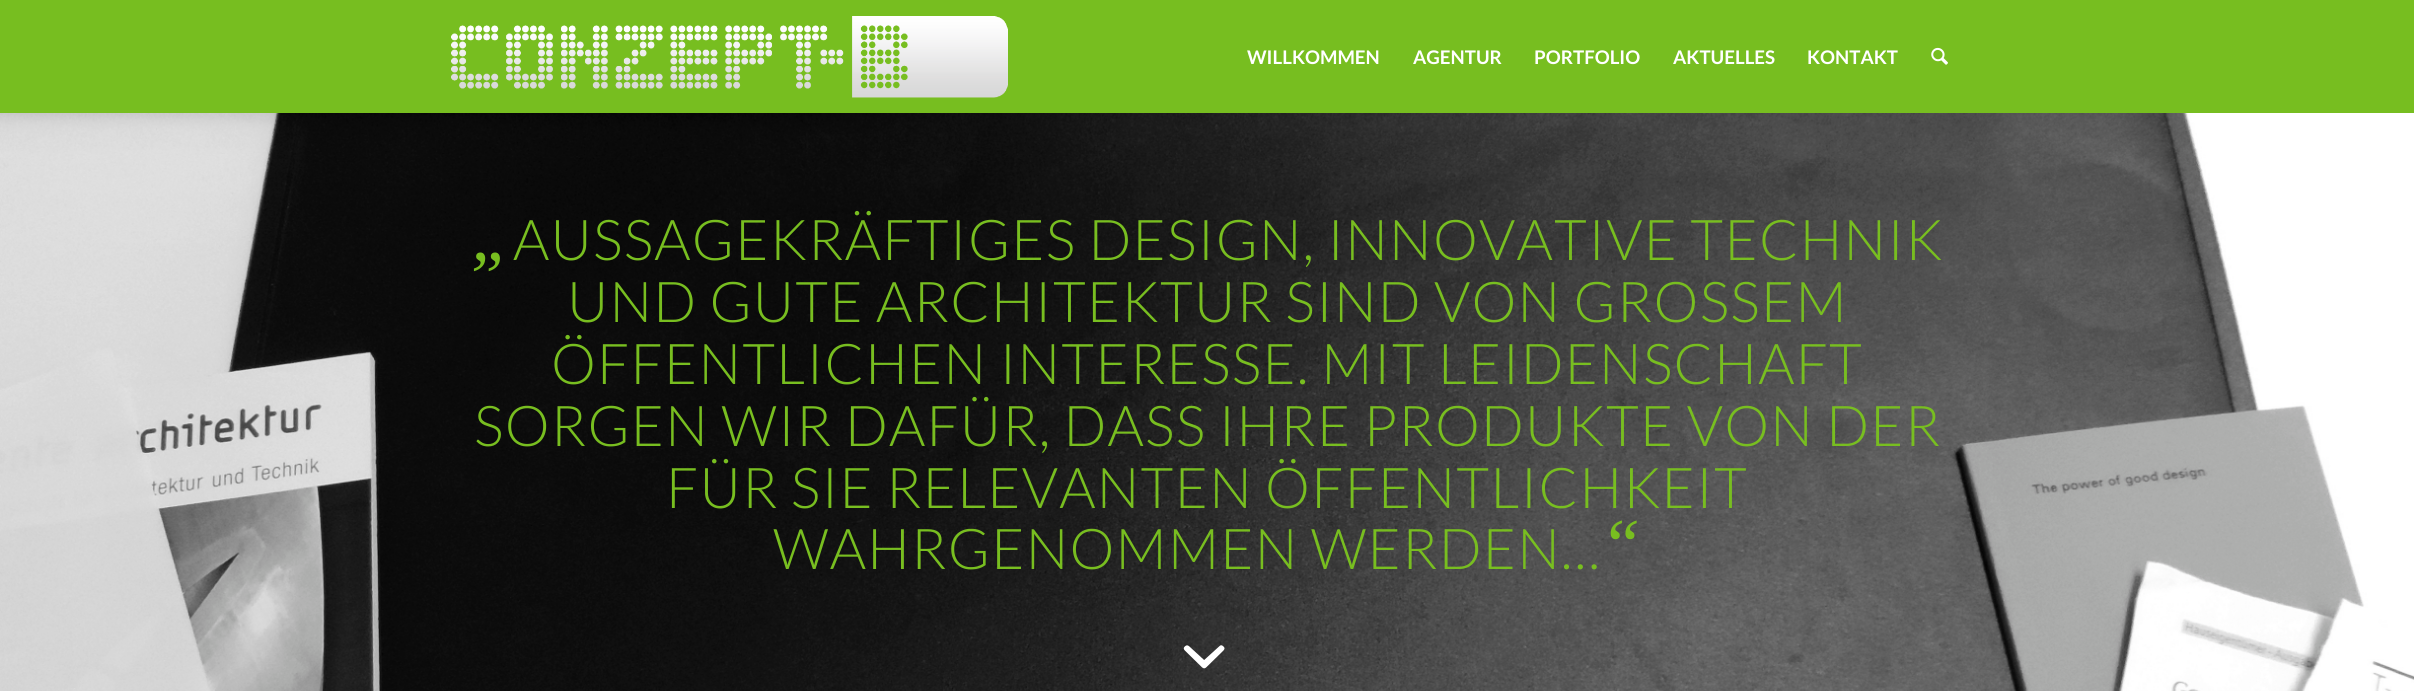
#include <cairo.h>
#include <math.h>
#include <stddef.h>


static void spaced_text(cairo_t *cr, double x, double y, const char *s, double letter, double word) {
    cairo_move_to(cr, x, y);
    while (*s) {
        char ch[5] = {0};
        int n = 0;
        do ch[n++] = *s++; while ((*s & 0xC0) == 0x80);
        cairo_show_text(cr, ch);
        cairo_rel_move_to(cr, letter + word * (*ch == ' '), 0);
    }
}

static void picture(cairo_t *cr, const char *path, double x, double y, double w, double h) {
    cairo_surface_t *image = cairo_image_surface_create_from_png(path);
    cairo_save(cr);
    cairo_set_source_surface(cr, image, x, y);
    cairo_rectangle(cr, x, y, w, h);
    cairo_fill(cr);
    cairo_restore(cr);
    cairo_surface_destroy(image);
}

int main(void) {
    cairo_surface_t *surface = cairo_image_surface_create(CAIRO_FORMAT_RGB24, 2414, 692);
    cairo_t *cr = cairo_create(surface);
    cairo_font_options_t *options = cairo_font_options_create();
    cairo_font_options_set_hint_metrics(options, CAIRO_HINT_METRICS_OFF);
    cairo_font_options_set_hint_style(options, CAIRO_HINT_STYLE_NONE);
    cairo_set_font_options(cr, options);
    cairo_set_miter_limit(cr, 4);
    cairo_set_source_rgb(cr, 1, 1, 1);
    cairo_paint(cr);
    cairo_set_source_rgb(cr, 0.467, 0.745, 0.125);
    cairo_rectangle(cr, 0, 0, 2414, 113);
    cairo_fill(cr);
    picture(cr, "img1.png", 451, 16, 557, 82);
    cairo_select_font_face(cr, "Lato", CAIRO_FONT_SLANT_NORMAL, CAIRO_FONT_WEIGHT_BOLD);
    cairo_set_font_size(cr, 18.75);
    cairo_set_source_rgb(cr, 1, 1, 1);
    cairo_move_to(cr, 1247, 64);
    cairo_show_text(cr, "WILLKOMMEN");
    cairo_move_to(cr, 1413, 64);
    cairo_show_text(cr, "AGENTUR");
    cairo_move_to(cr, 1534, 64);
    cairo_show_text(cr, "PORTFOLIO");
    cairo_move_to(cr, 1673, 64);
    cairo_show_text(cr, "AKTUELLES");
    cairo_move_to(cr, 1807, 64);
    cairo_show_text(cr, "KONTAKT");
    picture(cr, "img2.png", 1931, 47, 17, 18);
    picture(cr, "img3.png", 0, 113, 2414, 578);
    cairo_select_font_face(cr, "Liberation Serif", CAIRO_FONT_SLANT_ITALIC, CAIRO_FONT_WEIGHT_NORMAL);
    cairo_set_font_size(cr, 73);
    cairo_set_source_rgb(cr, 0.471, 0.745, 0.125);
    spaced_text(cr, 471, 260, "„", 1.25, 0);
    cairo_select_font_face(cr, "Lato Light", CAIRO_FONT_SLANT_NORMAL, CAIRO_FONT_WEIGHT_NORMAL);
    cairo_set_font_size(cr, 56.25);
    spaced_text(cr, 513, 260, "AUSSAGEKRÄFTIGES DESIGN, INNOVATIVE TECHNIK", 1.25, 0);
    spaced_text(cr, 567, 322, "UND GUTE ARCHITEKTUR SIND VON GROSSEM", 1.25, 0);
    spaced_text(cr, 551, 384, "ÖFFENTLICHEN INTERESSE. MIT LEIDENSCHAFT", 1.25, 0);
    spaced_text(cr, 474, 446, "SORGEN WIR DAFÜR, DASS IHRE PRODUKTE VON DER", 1.25, 0);
    spaced_text(cr, 666, 508, "FÜR SIE RELEVANTEN ÖFFENTLICHKEIT", 1.25, 0);
    spaced_text(cr, 773, 569, "WAHRGENOMMEN WERDEN…", 1.25, 0);
    cairo_select_font_face(cr, "Liberation Serif", CAIRO_FONT_SLANT_ITALIC, CAIRO_FONT_WEIGHT_NORMAL);
    cairo_set_font_size(cr, 73);
    spaced_text(cr, 1600, 569, "“", 1.25, 0);
    picture(cr, "img4.png", 1183, 645, 42, 24);
    cairo_surface_write_to_png(surface, "page.png");
    cairo_font_options_destroy(options);
    cairo_destroy(cr);
    cairo_surface_destroy(surface);
    return 0;
}
